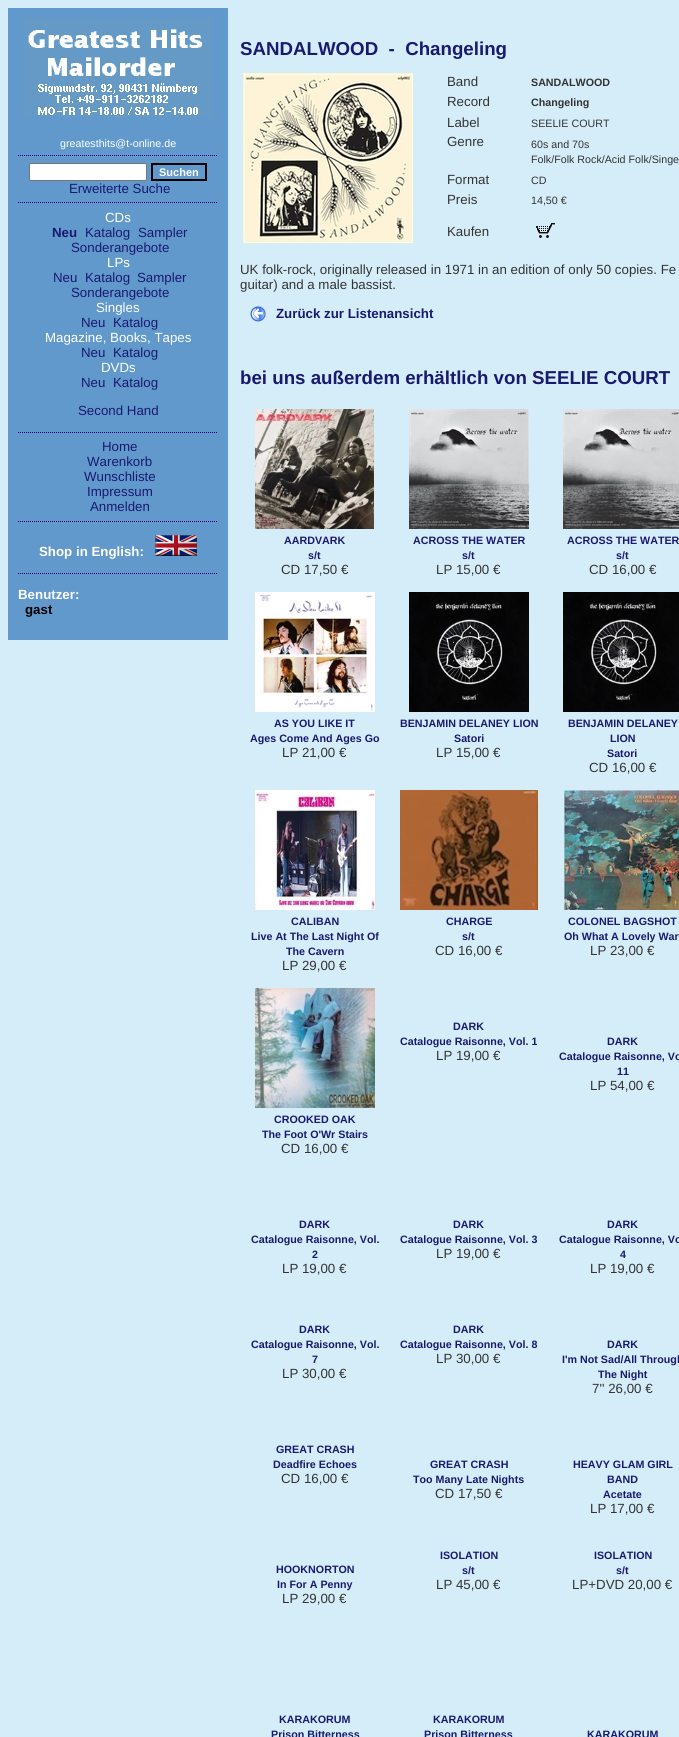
#include <cairo.h>
#include <math.h>
#include <stddef.h>


static void round_rect(cairo_t *cr, double x, double y, double w, double h, double r) {
    cairo_new_sub_path(cr);
    cairo_arc(cr, x + w - r, y + h - r, r, 0, M_PI / 2);
    cairo_arc(cr, x + r, y + h - r, r, M_PI / 2, M_PI);
    cairo_arc(cr, x + r, y + r, r, M_PI, 1.5 * M_PI);
    cairo_arc(cr, x + w - r, y + r, r, 1.5 * M_PI, 2 * M_PI);
    cairo_close_path(cr);
}

static void picture(cairo_t *cr, const char *path, double x, double y, double w, double h) {
    cairo_surface_t *image = cairo_image_surface_create_from_png(path);
    cairo_save(cr);
    cairo_set_source_surface(cr, image, x, y);
    cairo_rectangle(cr, x, y, w, h);
    cairo_fill(cr);
    cairo_restore(cr);
    cairo_surface_destroy(image);
}

int main(void) {
    cairo_surface_t *surface = cairo_image_surface_create(CAIRO_FORMAT_RGB24, 679, 1737);
    cairo_t *cr = cairo_create(surface);
    cairo_font_options_t *options = cairo_font_options_create();
    cairo_font_options_set_hint_metrics(options, CAIRO_HINT_METRICS_OFF);
    cairo_font_options_set_hint_style(options, CAIRO_HINT_STYLE_NONE);
    cairo_set_font_options(cr, options);
    cairo_set_miter_limit(cr, 4);
    cairo_set_source_rgb(cr, 0.835, 0.929, 0.976);
    cairo_paint(cr);
    cairo_set_source_rgb(cr, 0.384, 0.6, 0.804);
    cairo_rectangle(cr, 8, 8, 220, 632);
    cairo_fill(cr);
    picture(cr, "img1.png", 24, 18, 188, 99);
    cairo_select_font_face(cr, "Liberation Sans", CAIRO_FONT_SLANT_NORMAL, CAIRO_FONT_WEIGHT_NORMAL);
    cairo_set_font_size(cr, 10.7);
    cairo_set_source_rgb(cr, 1, 1, 1);
    cairo_move_to(cr, 60, 147);
    cairo_show_text(cr, "greatesthits@t-online.de");
    cairo_new_path(cr);
    cairo_move_to(cr, 18, 155.5);
    cairo_line_to(cr, 218, 155.5);
    cairo_set_source_rgb(cr, 0, 0, 0.545);
    cairo_set_line_width(cr, 1);
    cairo_set_dash(cr, (double[]){1, 1}, 2, 0);
    cairo_stroke(cr);
    cairo_set_source_rgb(cr, 1, 1, 1);
    round_rect(cr, 29.5, 163.5, 117, 17, 1.5);
    cairo_fill_preserve(cr);
    cairo_set_source_rgb(cr, 0.463, 0.463, 0.463);
    cairo_set_dash(cr, NULL, 0, 0);
    cairo_stroke(cr);
    cairo_rectangle(cr, 152, 164, 54, 16);
    cairo_set_source_rgb(cr, 0, 0, 0);
    cairo_set_line_width(cr, 2);
    cairo_stroke(cr);
    cairo_select_font_face(cr, "Liberation Sans", CAIRO_FONT_SLANT_NORMAL, CAIRO_FONT_WEIGHT_BOLD);
    cairo_set_font_size(cr, 11);
    cairo_set_source_rgb(cr, 1, 1, 1);
    cairo_move_to(cr, 159, 176);
    cairo_show_text(cr, "Suchen");
    cairo_select_font_face(cr, "Liberation Sans", CAIRO_FONT_SLANT_NORMAL, CAIRO_FONT_WEIGHT_NORMAL);
    cairo_set_font_size(cr, 13.3);
    cairo_set_source_rgb(cr, 0.098, 0.098, 0.439);
    cairo_move_to(cr, 69, 193);
    cairo_show_text(cr, "Erweiterte Suche");
    cairo_new_path(cr);
    cairo_move_to(cr, 18, 202.5);
    cairo_line_to(cr, 218, 202.5);
    cairo_set_source_rgb(cr, 0, 0, 0.545);
    cairo_set_line_width(cr, 1);
    cairo_set_dash(cr, (double[]){1, 1}, 2, 0);
    cairo_stroke(cr);
    cairo_set_source_rgb(cr, 1, 1, 1);
    cairo_move_to(cr, 105, 222);
    cairo_show_text(cr, "CDs");
    cairo_select_font_face(cr, "Liberation Sans", CAIRO_FONT_SLANT_NORMAL, CAIRO_FONT_WEIGHT_BOLD);
    cairo_set_source_rgb(cr, 0.098, 0.098, 0.439);
    cairo_move_to(cr, 52, 237);
    cairo_show_text(cr, "Neu");
    cairo_select_font_face(cr, "Liberation Sans", CAIRO_FONT_SLANT_NORMAL, CAIRO_FONT_WEIGHT_NORMAL);
    cairo_move_to(cr, 85, 237);
    cairo_show_text(cr, "Katalog");
    cairo_move_to(cr, 138, 237);
    cairo_show_text(cr, "Sampler");
    cairo_move_to(cr, 71, 252);
    cairo_show_text(cr, "Sonderangebote");
    cairo_set_source_rgb(cr, 1, 1, 1);
    cairo_move_to(cr, 107, 267);
    cairo_show_text(cr, "LPs");
    cairo_set_source_rgb(cr, 0.098, 0.098, 0.439);
    cairo_move_to(cr, 53, 282);
    cairo_show_text(cr, "Neu");
    cairo_move_to(cr, 85, 282);
    cairo_show_text(cr, "Katalog");
    cairo_move_to(cr, 137, 282);
    cairo_show_text(cr, "Sampler");
    cairo_move_to(cr, 71, 297);
    cairo_show_text(cr, "Sonderangebote");
    cairo_set_source_rgb(cr, 1, 1, 1);
    cairo_move_to(cr, 96, 312);
    cairo_show_text(cr, "Singles");
    cairo_set_source_rgb(cr, 0.098, 0.098, 0.439);
    cairo_move_to(cr, 81, 327);
    cairo_show_text(cr, "Neu");
    cairo_move_to(cr, 113, 327);
    cairo_show_text(cr, "Katalog");
    cairo_set_source_rgb(cr, 1, 1, 1);
    cairo_move_to(cr, 45, 342);
    cairo_show_text(cr, "Magazine, Books, Tapes");
    cairo_set_source_rgb(cr, 0.098, 0.098, 0.439);
    cairo_move_to(cr, 81, 357);
    cairo_show_text(cr, "Neu");
    cairo_move_to(cr, 113, 357);
    cairo_show_text(cr, "Katalog");
    cairo_set_source_rgb(cr, 1, 1, 1);
    cairo_move_to(cr, 101, 372);
    cairo_show_text(cr, "DVDs");
    cairo_set_source_rgb(cr, 0.098, 0.098, 0.439);
    cairo_move_to(cr, 81, 387);
    cairo_show_text(cr, "Neu");
    cairo_move_to(cr, 113, 387);
    cairo_show_text(cr, "Katalog");
    cairo_move_to(cr, 78, 415);
    cairo_show_text(cr, "Second Hand");
    cairo_new_path(cr);
    cairo_move_to(cr, 18, 432.5);
    cairo_line_to(cr, 218, 432.5);
    cairo_set_source_rgb(cr, 0, 0, 0.545);
    cairo_stroke(cr);
    cairo_set_source_rgb(cr, 0.098, 0.098, 0.439);
    cairo_move_to(cr, 102, 451);
    cairo_show_text(cr, "Home");
    cairo_move_to(cr, 87, 466);
    cairo_show_text(cr, "Warenkorb");
    cairo_move_to(cr, 84, 481);
    cairo_show_text(cr, "Wunschliste");
    cairo_move_to(cr, 87, 496);
    cairo_show_text(cr, "Impressum");
    cairo_move_to(cr, 90, 511);
    cairo_show_text(cr, "Anmelden");
    cairo_new_path(cr);
    cairo_move_to(cr, 18, 521.5);
    cairo_line_to(cr, 218, 521.5);
    cairo_set_source_rgb(cr, 0, 0, 0.545);
    cairo_stroke(cr);
    cairo_select_font_face(cr, "Liberation Sans", CAIRO_FONT_SLANT_NORMAL, CAIRO_FONT_WEIGHT_BOLD);
    cairo_set_source_rgb(cr, 1, 1, 1);
    cairo_move_to(cr, 39, 556);
    cairo_show_text(cr, "Shop in English:");
    picture(cr, "img2.png", 155, 535, 42, 21);
    cairo_new_path(cr);
    cairo_move_to(cr, 18, 573.5);
    cairo_line_to(cr, 218, 573.5);
    cairo_set_source_rgb(cr, 0, 0, 0.545);
    cairo_stroke(cr);
    cairo_set_source_rgb(cr, 1, 1, 1);
    cairo_move_to(cr, 18, 599);
    cairo_show_text(cr, "Benutzer:");
    cairo_set_source_rgb(cr, 0, 0, 0);
    cairo_move_to(cr, 25, 614);
    cairo_show_text(cr, "gast");
    cairo_set_font_size(cr, 18.7);
    cairo_set_source_rgb(cr, 0.098, 0.098, 0.439);
    cairo_move_to(cr, 240, 55);
    cairo_show_text(cr, "SANDALWOOD  -  Changeling");
    picture(cr, "img3.png", 243, 73, 170, 170);
    cairo_select_font_face(cr, "Liberation Sans", CAIRO_FONT_SLANT_NORMAL, CAIRO_FONT_WEIGHT_NORMAL);
    cairo_set_font_size(cr, 13.3);
    cairo_set_source_rgb(cr, 0.2, 0.2, 0.2);
    cairo_move_to(cr, 447, 86);
    cairo_show_text(cr, "Band");
    cairo_select_font_face(cr, "Liberation Sans", CAIRO_FONT_SLANT_NORMAL, CAIRO_FONT_WEIGHT_BOLD);
    cairo_set_font_size(cr, 10.7);
    cairo_move_to(cr, 531, 86);
    cairo_show_text(cr, "SANDALWOOD");
    cairo_select_font_face(cr, "Liberation Sans", CAIRO_FONT_SLANT_NORMAL, CAIRO_FONT_WEIGHT_NORMAL);
    cairo_set_font_size(cr, 13.3);
    cairo_move_to(cr, 447, 106);
    cairo_show_text(cr, "Record");
    cairo_select_font_face(cr, "Liberation Sans", CAIRO_FONT_SLANT_NORMAL, CAIRO_FONT_WEIGHT_BOLD);
    cairo_set_font_size(cr, 10.7);
    cairo_move_to(cr, 531, 106);
    cairo_show_text(cr, "Changeling");
    cairo_select_font_face(cr, "Liberation Sans", CAIRO_FONT_SLANT_NORMAL, CAIRO_FONT_WEIGHT_NORMAL);
    cairo_set_font_size(cr, 13.3);
    cairo_move_to(cr, 447, 127);
    cairo_show_text(cr, "Label");
    cairo_set_font_size(cr, 10.7);
    cairo_move_to(cr, 531, 127);
    cairo_show_text(cr, "SEELIE COURT");
    cairo_set_font_size(cr, 13.3);
    cairo_move_to(cr, 447, 146);
    cairo_show_text(cr, "Genre");
    cairo_set_font_size(cr, 10.7);
    cairo_move_to(cr, 531, 148);
    cairo_show_text(cr, "60s and 70s");
    cairo_move_to(cr, 531, 163);
    cairo_show_text(cr, "Folk/Folk Rock/Acid Folk/Singe");
    cairo_set_font_size(cr, 13.3);
    cairo_move_to(cr, 447, 184);
    cairo_show_text(cr, "Format");
    cairo_set_font_size(cr, 10.7);
    cairo_move_to(cr, 531, 184);
    cairo_show_text(cr, "CD");
    cairo_set_font_size(cr, 13.3);
    cairo_move_to(cr, 447, 204);
    cairo_show_text(cr, "Preis");
    cairo_set_font_size(cr, 10.7);
    cairo_move_to(cr, 531, 204);
    cairo_show_text(cr, "14,50 €");
    cairo_set_font_size(cr, 13.3);
    cairo_move_to(cr, 447, 236);
    cairo_show_text(cr, "Kaufen");
    picture(cr, "img4.png", 536, 223, 19, 15);
    cairo_move_to(cr, 240, 274);
    cairo_show_text(cr, "UK folk-rock, originally released in 1971 in an edition of only 50 copies. Fe");
    cairo_move_to(cr, 240, 289);
    cairo_show_text(cr, "guitar) and a male bassist.");
    picture(cr, "img5.png", 250, 306, 16, 16);
    cairo_select_font_face(cr, "Liberation Sans", CAIRO_FONT_SLANT_NORMAL, CAIRO_FONT_WEIGHT_BOLD);
    cairo_set_source_rgb(cr, 0.098, 0.098, 0.439);
    cairo_move_to(cr, 276, 318);
    cairo_show_text(cr, "Zurück zur Listenansicht");
    cairo_set_font_size(cr, 18.7);
    cairo_move_to(cr, 240, 384);
    cairo_show_text(cr, "bei uns außerdem erhältlich von SEELIE COURT");
    picture(cr, "img6.png", 255, 409, 119, 120);
    cairo_set_font_size(cr, 10.7);
    cairo_move_to(cr, 284, 544);
    cairo_show_text(cr, "AARDVARK");
    cairo_move_to(cr, 308, 559);
    cairo_show_text(cr, "s/t");
    cairo_select_font_face(cr, "Liberation Sans", CAIRO_FONT_SLANT_NORMAL, CAIRO_FONT_WEIGHT_NORMAL);
    cairo_set_font_size(cr, 13.3);
    cairo_set_source_rgb(cr, 0.2, 0.2, 0.2);
    cairo_move_to(cr, 281, 574);
    cairo_show_text(cr, "CD 17,50 €");
    picture(cr, "img7.png", 409, 409, 120, 120);
    cairo_select_font_face(cr, "Liberation Sans", CAIRO_FONT_SLANT_NORMAL, CAIRO_FONT_WEIGHT_BOLD);
    cairo_set_font_size(cr, 10.7);
    cairo_set_source_rgb(cr, 0.098, 0.098, 0.439);
    cairo_move_to(cr, 413, 544);
    cairo_show_text(cr, "ACROSS THE WATER");
    cairo_move_to(cr, 462, 559);
    cairo_show_text(cr, "s/t");
    cairo_select_font_face(cr, "Liberation Sans", CAIRO_FONT_SLANT_NORMAL, CAIRO_FONT_WEIGHT_NORMAL);
    cairo_set_font_size(cr, 13.3);
    cairo_set_source_rgb(cr, 0.2, 0.2, 0.2);
    cairo_move_to(cr, 436, 574);
    cairo_show_text(cr, "LP 15,00 €");
    picture(cr, "img8.png", 563, 409, 116, 120);
    cairo_select_font_face(cr, "Liberation Sans", CAIRO_FONT_SLANT_NORMAL, CAIRO_FONT_WEIGHT_BOLD);
    cairo_set_font_size(cr, 10.7);
    cairo_set_source_rgb(cr, 0.098, 0.098, 0.439);
    cairo_move_to(cr, 567, 544);
    cairo_show_text(cr, "ACROSS THE WATER");
    cairo_move_to(cr, 616, 559);
    cairo_show_text(cr, "s/t");
    cairo_select_font_face(cr, "Liberation Sans", CAIRO_FONT_SLANT_NORMAL, CAIRO_FONT_WEIGHT_NORMAL);
    cairo_set_font_size(cr, 13.3);
    cairo_set_source_rgb(cr, 0.2, 0.2, 0.2);
    cairo_move_to(cr, 589, 574);
    cairo_show_text(cr, "CD 16,00 €");
    picture(cr, "img9.png", 255, 592, 120, 120);
    cairo_select_font_face(cr, "Liberation Sans", CAIRO_FONT_SLANT_NORMAL, CAIRO_FONT_WEIGHT_BOLD);
    cairo_set_font_size(cr, 10.7);
    cairo_set_source_rgb(cr, 0.098, 0.098, 0.439);
    cairo_move_to(cr, 274, 727);
    cairo_show_text(cr, "AS YOU LIKE IT");
    cairo_move_to(cr, 250, 742);
    cairo_show_text(cr, "Ages Come And Ages Go");
    cairo_select_font_face(cr, "Liberation Sans", CAIRO_FONT_SLANT_NORMAL, CAIRO_FONT_WEIGHT_NORMAL);
    cairo_set_font_size(cr, 13.3);
    cairo_set_source_rgb(cr, 0.2, 0.2, 0.2);
    cairo_move_to(cr, 282, 757);
    cairo_show_text(cr, "LP 21,00 €");
    picture(cr, "img10.png", 409, 592, 120, 120);
    cairo_select_font_face(cr, "Liberation Sans", CAIRO_FONT_SLANT_NORMAL, CAIRO_FONT_WEIGHT_BOLD);
    cairo_set_font_size(cr, 10.7);
    cairo_set_source_rgb(cr, 0.098, 0.098, 0.439);
    cairo_move_to(cr, 400, 727);
    cairo_show_text(cr, "BENJAMIN DELANEY LION");
    cairo_move_to(cr, 454, 742);
    cairo_show_text(cr, "Satori");
    cairo_select_font_face(cr, "Liberation Sans", CAIRO_FONT_SLANT_NORMAL, CAIRO_FONT_WEIGHT_NORMAL);
    cairo_set_font_size(cr, 13.3);
    cairo_set_source_rgb(cr, 0.2, 0.2, 0.2);
    cairo_move_to(cr, 436, 757);
    cairo_show_text(cr, "LP 15,00 €");
    picture(cr, "img11.png", 563, 592, 116, 120);
    cairo_select_font_face(cr, "Liberation Sans", CAIRO_FONT_SLANT_NORMAL, CAIRO_FONT_WEIGHT_BOLD);
    cairo_set_font_size(cr, 10.7);
    cairo_set_source_rgb(cr, 0.098, 0.098, 0.439);
    cairo_move_to(cr, 568, 727);
    cairo_show_text(cr, "BENJAMIN DELANEY");
    cairo_move_to(cr, 610, 742);
    cairo_show_text(cr, "LION");
    cairo_move_to(cr, 607, 757);
    cairo_show_text(cr, "Satori");
    cairo_select_font_face(cr, "Liberation Sans", CAIRO_FONT_SLANT_NORMAL, CAIRO_FONT_WEIGHT_NORMAL);
    cairo_set_font_size(cr, 13.3);
    cairo_set_source_rgb(cr, 0.2, 0.2, 0.2);
    cairo_move_to(cr, 589, 772);
    cairo_show_text(cr, "CD 16,00 €");
    picture(cr, "img12.png", 255, 790, 120, 120);
    cairo_select_font_face(cr, "Liberation Sans", CAIRO_FONT_SLANT_NORMAL, CAIRO_FONT_WEIGHT_BOLD);
    cairo_set_font_size(cr, 10.7);
    cairo_set_source_rgb(cr, 0.098, 0.098, 0.439);
    cairo_move_to(cr, 291, 925);
    cairo_show_text(cr, "CALIBAN");
    cairo_move_to(cr, 251, 940);
    cairo_show_text(cr, "Live At The Last Night Of");
    cairo_move_to(cr, 286, 955);
    cairo_show_text(cr, "The Cavern");
    cairo_select_font_face(cr, "Liberation Sans", CAIRO_FONT_SLANT_NORMAL, CAIRO_FONT_WEIGHT_NORMAL);
    cairo_set_font_size(cr, 13.3);
    cairo_set_source_rgb(cr, 0.2, 0.2, 0.2);
    cairo_move_to(cr, 282, 970);
    cairo_show_text(cr, "LP 29,00 €");
    picture(cr, "img13.png", 400, 790, 138, 120);
    cairo_select_font_face(cr, "Liberation Sans", CAIRO_FONT_SLANT_NORMAL, CAIRO_FONT_WEIGHT_BOLD);
    cairo_set_font_size(cr, 10.7);
    cairo_set_source_rgb(cr, 0.098, 0.098, 0.439);
    cairo_move_to(cr, 446, 925);
    cairo_show_text(cr, "CHARGE");
    cairo_move_to(cr, 462, 940);
    cairo_show_text(cr, "s/t");
    cairo_select_font_face(cr, "Liberation Sans", CAIRO_FONT_SLANT_NORMAL, CAIRO_FONT_WEIGHT_NORMAL);
    cairo_set_font_size(cr, 13.3);
    cairo_set_source_rgb(cr, 0.2, 0.2, 0.2);
    cairo_move_to(cr, 435, 955);
    cairo_show_text(cr, "CD 16,00 €");
    picture(cr, "img14.png", 564, 790, 115, 120);
    cairo_select_font_face(cr, "Liberation Sans", CAIRO_FONT_SLANT_NORMAL, CAIRO_FONT_WEIGHT_BOLD);
    cairo_set_font_size(cr, 10.7);
    cairo_set_source_rgb(cr, 0.098, 0.098, 0.439);
    cairo_move_to(cr, 568, 925);
    cairo_show_text(cr, "COLONEL BAGSHOT");
    cairo_move_to(cr, 564, 940);
    cairo_show_text(cr, "Oh What A Lovely War");
    cairo_select_font_face(cr, "Liberation Sans", CAIRO_FONT_SLANT_NORMAL, CAIRO_FONT_WEIGHT_NORMAL);
    cairo_set_font_size(cr, 13.3);
    cairo_set_source_rgb(cr, 0.2, 0.2, 0.2);
    cairo_move_to(cr, 590, 955);
    cairo_show_text(cr, "LP 23,00 €");
    cairo_select_font_face(cr, "Liberation Sans", CAIRO_FONT_SLANT_NORMAL, CAIRO_FONT_WEIGHT_BOLD);
    cairo_set_font_size(cr, 10.7);
    cairo_set_source_rgb(cr, 0.098, 0.098, 0.439);
    cairo_move_to(cr, 453, 1030);
    cairo_show_text(cr, "DARK");
    cairo_move_to(cr, 400, 1045);
    cairo_show_text(cr, "Catalogue Raisonne, Vol. 1");
    cairo_select_font_face(cr, "Liberation Sans", CAIRO_FONT_SLANT_NORMAL, CAIRO_FONT_WEIGHT_NORMAL);
    cairo_set_font_size(cr, 13.3);
    cairo_set_source_rgb(cr, 0.2, 0.2, 0.2);
    cairo_move_to(cr, 436, 1060);
    cairo_show_text(cr, "LP 19,00 €");
    cairo_select_font_face(cr, "Liberation Sans", CAIRO_FONT_SLANT_NORMAL, CAIRO_FONT_WEIGHT_BOLD);
    cairo_set_font_size(cr, 10.7);
    cairo_set_source_rgb(cr, 0.098, 0.098, 0.439);
    cairo_move_to(cr, 607, 1045);
    cairo_show_text(cr, "DARK");
    cairo_move_to(cr, 559, 1060);
    cairo_show_text(cr, "Catalogue Raisonne, Vo");
    cairo_move_to(cr, 617, 1075);
    cairo_show_text(cr, "11");
    cairo_select_font_face(cr, "Liberation Sans", CAIRO_FONT_SLANT_NORMAL, CAIRO_FONT_WEIGHT_NORMAL);
    cairo_set_font_size(cr, 13.3);
    cairo_set_source_rgb(cr, 0.2, 0.2, 0.2);
    cairo_move_to(cr, 590, 1090);
    cairo_show_text(cr, "LP 54,00 €");
    picture(cr, "img15.png", 255, 988, 120, 120);
    cairo_select_font_face(cr, "Liberation Sans", CAIRO_FONT_SLANT_NORMAL, CAIRO_FONT_WEIGHT_BOLD);
    cairo_set_font_size(cr, 10.7);
    cairo_set_source_rgb(cr, 0.098, 0.098, 0.439);
    cairo_move_to(cr, 274, 1123);
    cairo_show_text(cr, "CROOKED OAK");
    cairo_move_to(cr, 262, 1138);
    cairo_show_text(cr, "The Foot O'Wr Stairs");
    cairo_select_font_face(cr, "Liberation Sans", CAIRO_FONT_SLANT_NORMAL, CAIRO_FONT_WEIGHT_NORMAL);
    cairo_set_font_size(cr, 13.3);
    cairo_set_source_rgb(cr, 0.2, 0.2, 0.2);
    cairo_move_to(cr, 281, 1153);
    cairo_show_text(cr, "CD 16,00 €");
    cairo_select_font_face(cr, "Liberation Sans", CAIRO_FONT_SLANT_NORMAL, CAIRO_FONT_WEIGHT_BOLD);
    cairo_set_font_size(cr, 10.7);
    cairo_set_source_rgb(cr, 0.098, 0.098, 0.439);
    cairo_move_to(cr, 299, 1228);
    cairo_show_text(cr, "DARK");
    cairo_move_to(cr, 251, 1243);
    cairo_show_text(cr, "Catalogue Raisonne, Vol.");
    cairo_move_to(cr, 312, 1258);
    cairo_show_text(cr, "2");
    cairo_select_font_face(cr, "Liberation Sans", CAIRO_FONT_SLANT_NORMAL, CAIRO_FONT_WEIGHT_NORMAL);
    cairo_set_font_size(cr, 13.3);
    cairo_set_source_rgb(cr, 0.2, 0.2, 0.2);
    cairo_move_to(cr, 282, 1273);
    cairo_show_text(cr, "LP 19,00 €");
    cairo_select_font_face(cr, "Liberation Sans", CAIRO_FONT_SLANT_NORMAL, CAIRO_FONT_WEIGHT_BOLD);
    cairo_set_font_size(cr, 10.7);
    cairo_set_source_rgb(cr, 0.098, 0.098, 0.439);
    cairo_move_to(cr, 453, 1228);
    cairo_show_text(cr, "DARK");
    cairo_move_to(cr, 400, 1243);
    cairo_show_text(cr, "Catalogue Raisonne, Vol. 3");
    cairo_select_font_face(cr, "Liberation Sans", CAIRO_FONT_SLANT_NORMAL, CAIRO_FONT_WEIGHT_NORMAL);
    cairo_set_font_size(cr, 13.3);
    cairo_set_source_rgb(cr, 0.2, 0.2, 0.2);
    cairo_move_to(cr, 436, 1258);
    cairo_show_text(cr, "LP 19,00 €");
    cairo_select_font_face(cr, "Liberation Sans", CAIRO_FONT_SLANT_NORMAL, CAIRO_FONT_WEIGHT_BOLD);
    cairo_set_font_size(cr, 10.7);
    cairo_set_source_rgb(cr, 0.098, 0.098, 0.439);
    cairo_move_to(cr, 607, 1228);
    cairo_show_text(cr, "DARK");
    cairo_move_to(cr, 559, 1243);
    cairo_show_text(cr, "Catalogue Raisonne, Vo");
    cairo_move_to(cr, 620, 1258);
    cairo_show_text(cr, "4");
    cairo_select_font_face(cr, "Liberation Sans", CAIRO_FONT_SLANT_NORMAL, CAIRO_FONT_WEIGHT_NORMAL);
    cairo_set_font_size(cr, 13.3);
    cairo_set_source_rgb(cr, 0.2, 0.2, 0.2);
    cairo_move_to(cr, 590, 1273);
    cairo_show_text(cr, "LP 19,00 €");
    cairo_select_font_face(cr, "Liberation Sans", CAIRO_FONT_SLANT_NORMAL, CAIRO_FONT_WEIGHT_BOLD);
    cairo_set_font_size(cr, 10.7);
    cairo_set_source_rgb(cr, 0.098, 0.098, 0.439);
    cairo_move_to(cr, 299, 1333);
    cairo_show_text(cr, "DARK");
    cairo_move_to(cr, 251, 1348);
    cairo_show_text(cr, "Catalogue Raisonne, Vol.");
    cairo_move_to(cr, 312, 1363);
    cairo_show_text(cr, "7");
    cairo_select_font_face(cr, "Liberation Sans", CAIRO_FONT_SLANT_NORMAL, CAIRO_FONT_WEIGHT_NORMAL);
    cairo_set_font_size(cr, 13.3);
    cairo_set_source_rgb(cr, 0.2, 0.2, 0.2);
    cairo_move_to(cr, 282, 1378);
    cairo_show_text(cr, "LP 30,00 €");
    cairo_select_font_face(cr, "Liberation Sans", CAIRO_FONT_SLANT_NORMAL, CAIRO_FONT_WEIGHT_BOLD);
    cairo_set_font_size(cr, 10.7);
    cairo_set_source_rgb(cr, 0.098, 0.098, 0.439);
    cairo_move_to(cr, 453, 1333);
    cairo_show_text(cr, "DARK");
    cairo_move_to(cr, 400, 1348);
    cairo_show_text(cr, "Catalogue Raisonne, Vol. 8");
    cairo_select_font_face(cr, "Liberation Sans", CAIRO_FONT_SLANT_NORMAL, CAIRO_FONT_WEIGHT_NORMAL);
    cairo_set_font_size(cr, 13.3);
    cairo_set_source_rgb(cr, 0.2, 0.2, 0.2);
    cairo_move_to(cr, 436, 1363);
    cairo_show_text(cr, "LP 30,00 €");
    cairo_select_font_face(cr, "Liberation Sans", CAIRO_FONT_SLANT_NORMAL, CAIRO_FONT_WEIGHT_BOLD);
    cairo_set_font_size(cr, 10.7);
    cairo_set_source_rgb(cr, 0.098, 0.098, 0.439);
    cairo_move_to(cr, 607, 1348);
    cairo_show_text(cr, "DARK");
    cairo_move_to(cr, 562, 1363);
    cairo_show_text(cr, "I'm Not Sad/All Through");
    cairo_move_to(cr, 598, 1378);
    cairo_show_text(cr, "The Night");
    cairo_select_font_face(cr, "Liberation Sans", CAIRO_FONT_SLANT_NORMAL, CAIRO_FONT_WEIGHT_NORMAL);
    cairo_set_font_size(cr, 13.3);
    cairo_set_source_rgb(cr, 0.2, 0.2, 0.2);
    cairo_move_to(cr, 592, 1393);
    cairo_show_text(cr, "7'' 26,00 €");
    cairo_select_font_face(cr, "Liberation Sans", CAIRO_FONT_SLANT_NORMAL, CAIRO_FONT_WEIGHT_BOLD);
    cairo_set_font_size(cr, 10.7);
    cairo_set_source_rgb(cr, 0.098, 0.098, 0.439);
    cairo_move_to(cr, 276, 1453);
    cairo_show_text(cr, "GREAT CRASH");
    cairo_move_to(cr, 273, 1468);
    cairo_show_text(cr, "Deadfire Echoes");
    cairo_select_font_face(cr, "Liberation Sans", CAIRO_FONT_SLANT_NORMAL, CAIRO_FONT_WEIGHT_NORMAL);
    cairo_set_font_size(cr, 13.3);
    cairo_set_source_rgb(cr, 0.2, 0.2, 0.2);
    cairo_move_to(cr, 281, 1483);
    cairo_show_text(cr, "CD 16,00 €");
    cairo_select_font_face(cr, "Liberation Sans", CAIRO_FONT_SLANT_NORMAL, CAIRO_FONT_WEIGHT_BOLD);
    cairo_set_font_size(cr, 10.7);
    cairo_set_source_rgb(cr, 0.098, 0.098, 0.439);
    cairo_move_to(cr, 430, 1468);
    cairo_show_text(cr, "GREAT CRASH");
    cairo_move_to(cr, 413, 1483);
    cairo_show_text(cr, "Too Many Late Nights");
    cairo_select_font_face(cr, "Liberation Sans", CAIRO_FONT_SLANT_NORMAL, CAIRO_FONT_WEIGHT_NORMAL);
    cairo_set_font_size(cr, 13.3);
    cairo_set_source_rgb(cr, 0.2, 0.2, 0.2);
    cairo_move_to(cr, 435, 1498);
    cairo_show_text(cr, "CD 17,50 €");
    cairo_select_font_face(cr, "Liberation Sans", CAIRO_FONT_SLANT_NORMAL, CAIRO_FONT_WEIGHT_BOLD);
    cairo_set_font_size(cr, 10.7);
    cairo_set_source_rgb(cr, 0.098, 0.098, 0.439);
    cairo_move_to(cr, 573, 1468);
    cairo_show_text(cr, "HEAVY GLAM GIRL");
    cairo_move_to(cr, 607, 1483);
    cairo_show_text(cr, "BAND");
    cairo_move_to(cr, 603, 1498);
    cairo_show_text(cr, "Acetate");
    cairo_select_font_face(cr, "Liberation Sans", CAIRO_FONT_SLANT_NORMAL, CAIRO_FONT_WEIGHT_NORMAL);
    cairo_set_font_size(cr, 13.3);
    cairo_set_source_rgb(cr, 0.2, 0.2, 0.2);
    cairo_move_to(cr, 590, 1513);
    cairo_show_text(cr, "LP 17,00 €");
    cairo_select_font_face(cr, "Liberation Sans", CAIRO_FONT_SLANT_NORMAL, CAIRO_FONT_WEIGHT_BOLD);
    cairo_set_font_size(cr, 10.7);
    cairo_set_source_rgb(cr, 0.098, 0.098, 0.439);
    cairo_move_to(cr, 276, 1573);
    cairo_show_text(cr, "HOOKNORTON");
    cairo_move_to(cr, 277, 1588);
    cairo_show_text(cr, "In For A Penny");
    cairo_select_font_face(cr, "Liberation Sans", CAIRO_FONT_SLANT_NORMAL, CAIRO_FONT_WEIGHT_NORMAL);
    cairo_set_font_size(cr, 13.3);
    cairo_set_source_rgb(cr, 0.2, 0.2, 0.2);
    cairo_move_to(cr, 282, 1603);
    cairo_show_text(cr, "LP 29,00 €");
    cairo_select_font_face(cr, "Liberation Sans", CAIRO_FONT_SLANT_NORMAL, CAIRO_FONT_WEIGHT_BOLD);
    cairo_set_font_size(cr, 10.7);
    cairo_set_source_rgb(cr, 0.098, 0.098, 0.439);
    cairo_move_to(cr, 440, 1559);
    cairo_show_text(cr, "ISOLATION");
    cairo_move_to(cr, 462, 1574);
    cairo_show_text(cr, "s/t");
    cairo_select_font_face(cr, "Liberation Sans", CAIRO_FONT_SLANT_NORMAL, CAIRO_FONT_WEIGHT_NORMAL);
    cairo_set_font_size(cr, 13.3);
    cairo_set_source_rgb(cr, 0.2, 0.2, 0.2);
    cairo_move_to(cr, 436, 1589);
    cairo_show_text(cr, "LP 45,00 €");
    cairo_select_font_face(cr, "Liberation Sans", CAIRO_FONT_SLANT_NORMAL, CAIRO_FONT_WEIGHT_BOLD);
    cairo_set_font_size(cr, 10.7);
    cairo_set_source_rgb(cr, 0.098, 0.098, 0.439);
    cairo_move_to(cr, 594, 1559);
    cairo_show_text(cr, "ISOLATION");
    cairo_move_to(cr, 616, 1574);
    cairo_show_text(cr, "s/t");
    cairo_select_font_face(cr, "Liberation Sans", CAIRO_FONT_SLANT_NORMAL, CAIRO_FONT_WEIGHT_NORMAL);
    cairo_set_font_size(cr, 13.3);
    cairo_set_source_rgb(cr, 0.2, 0.2, 0.2);
    cairo_move_to(cr, 572, 1589);
    cairo_show_text(cr, "LP+DVD 20,00 €");
    cairo_select_font_face(cr, "Liberation Sans", CAIRO_FONT_SLANT_NORMAL, CAIRO_FONT_WEIGHT_BOLD);
    cairo_set_font_size(cr, 10.7);
    cairo_set_source_rgb(cr, 0.098, 0.098, 0.439);
    cairo_move_to(cr, 279, 1723);
    cairo_show_text(cr, "KARAKORUM");
    cairo_move_to(cr, 271, 1738);
    cairo_show_text(cr, "Prison Bitterness");
    cairo_move_to(cr, 433, 1723);
    cairo_show_text(cr, "KARAKORUM");
    cairo_move_to(cr, 424, 1738);
    cairo_show_text(cr, "Prison Bitterness");
    cairo_move_to(cr, 587, 1738);
    cairo_show_text(cr, "KARAKORUM");
    cairo_surface_write_to_png(surface, "page.png");
    cairo_font_options_destroy(options);
    cairo_destroy(cr);
    cairo_surface_destroy(surface);
    return 0;
}
